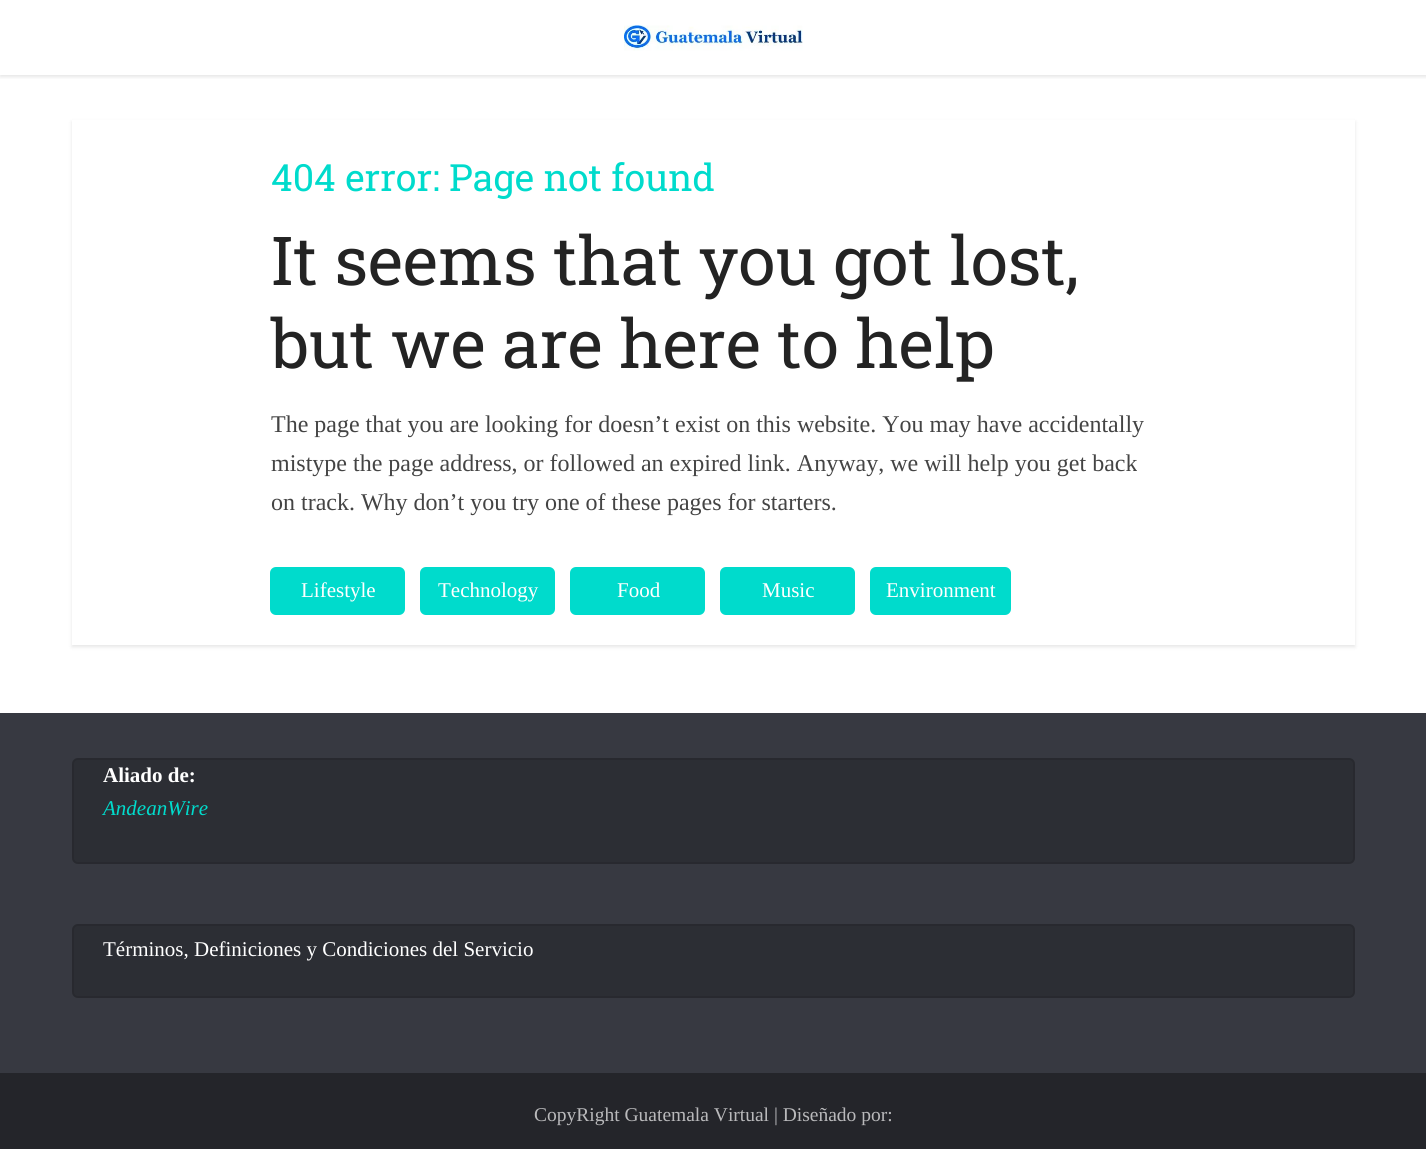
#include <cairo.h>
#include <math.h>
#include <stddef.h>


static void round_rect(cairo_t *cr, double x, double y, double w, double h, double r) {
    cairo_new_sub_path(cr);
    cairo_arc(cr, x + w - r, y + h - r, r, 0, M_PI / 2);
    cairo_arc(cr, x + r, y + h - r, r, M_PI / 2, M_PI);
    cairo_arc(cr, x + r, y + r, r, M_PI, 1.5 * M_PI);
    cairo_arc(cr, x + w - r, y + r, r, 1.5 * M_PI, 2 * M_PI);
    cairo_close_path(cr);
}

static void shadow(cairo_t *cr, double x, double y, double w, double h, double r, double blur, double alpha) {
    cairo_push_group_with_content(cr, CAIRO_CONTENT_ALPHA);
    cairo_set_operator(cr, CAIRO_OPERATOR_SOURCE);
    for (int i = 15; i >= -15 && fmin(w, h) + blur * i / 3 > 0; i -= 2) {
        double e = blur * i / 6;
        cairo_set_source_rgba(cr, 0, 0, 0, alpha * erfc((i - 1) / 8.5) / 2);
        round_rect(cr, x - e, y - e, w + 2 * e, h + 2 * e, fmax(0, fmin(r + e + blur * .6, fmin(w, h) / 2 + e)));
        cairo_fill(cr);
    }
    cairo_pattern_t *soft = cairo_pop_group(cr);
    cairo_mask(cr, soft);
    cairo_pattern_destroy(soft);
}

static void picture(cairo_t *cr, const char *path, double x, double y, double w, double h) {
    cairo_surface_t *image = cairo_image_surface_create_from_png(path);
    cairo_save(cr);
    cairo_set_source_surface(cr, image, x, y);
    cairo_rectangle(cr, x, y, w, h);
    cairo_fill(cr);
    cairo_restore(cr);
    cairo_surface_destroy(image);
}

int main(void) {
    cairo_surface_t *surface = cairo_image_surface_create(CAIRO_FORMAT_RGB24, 1426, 1149);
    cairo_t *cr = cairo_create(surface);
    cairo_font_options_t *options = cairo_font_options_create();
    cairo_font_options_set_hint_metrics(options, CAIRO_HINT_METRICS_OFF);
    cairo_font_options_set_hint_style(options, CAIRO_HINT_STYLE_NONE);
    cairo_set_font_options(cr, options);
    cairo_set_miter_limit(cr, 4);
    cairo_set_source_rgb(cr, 1, 1, 1);
    cairo_paint(cr);
    cairo_save(cr);
    cairo_rectangle(cr, 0, 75, 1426, 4);
    cairo_clip(cr);
    cairo_set_source_rgb(cr, 0, 0, 0);
    shadow(cr, 0, 2, 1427, 75, 0, 2, 0.1);
    cairo_restore(cr);
    picture(cr, "img1.png", 624, 25, 179, 26);
    cairo_set_source_rgb(cr, 0, 0, 0);
    shadow(cr, 72, 122, 1283, 525, 0, 2, 0.1);
    cairo_set_source_rgb(cr, 1, 1, 1);
    cairo_rectangle(cr, 72, 120, 1283, 525);
    cairo_fill(cr);
    cairo_select_font_face(cr, "Roboto Slab", CAIRO_FONT_SLANT_NORMAL, CAIRO_FONT_WEIGHT_NORMAL);
    cairo_set_font_size(cr, 37.5);
    cairo_set_source_rgb(cr, 0, 0.859, 0.8);
    cairo_move_to(cr, 271, 191);
    cairo_show_text(cr, "404 error: Page not found");
    cairo_set_font_size(cr, 67.5);
    cairo_set_source_rgb(cr, 0.137, 0.137, 0.137);
    cairo_move_to(cr, 271, 285);
    cairo_show_text(cr, "It seems that you got lost,");
    cairo_move_to(cr, 271, 368);
    cairo_show_text(cr, "but we are here to help");
    cairo_select_font_face(cr, "Liberation Serif", CAIRO_FONT_SLANT_NORMAL, CAIRO_FONT_WEIGHT_NORMAL);
    cairo_set_font_size(cr, 24);
    cairo_set_source_rgb(cr, 0.267, 0.267, 0.267);
    cairo_move_to(cr, 271, 432);
    cairo_show_text(cr, "The page that you are looking for doesn’t exist on this website. You may have accidentally");
    cairo_move_to(cr, 271, 471);
    cairo_show_text(cr, "mistype the page address, or followed an expired link. Anyway, we will help you get back");
    cairo_move_to(cr, 271, 510);
    cairo_show_text(cr, "on track. Why don’t you try one of these pages for starters.");
    cairo_set_source_rgb(cr, 0, 0.859, 0.8);
    round_rect(cr, 270, 567, 135, 48, 6);
    cairo_fill(cr);
    cairo_set_font_size(cr, 21);
    cairo_set_source_rgb(cr, 1, 1, 1);
    cairo_move_to(cr, 301, 597);
    cairo_show_text(cr, "Lifestyle");
    cairo_set_source_rgb(cr, 0, 0.859, 0.8);
    round_rect(cr, 420, 567, 135, 48, 6);
    cairo_fill(cr);
    cairo_set_source_rgb(cr, 1, 1, 1);
    cairo_move_to(cr, 438, 597);
    cairo_show_text(cr, "Technology");
    cairo_set_source_rgb(cr, 0, 0.859, 0.8);
    round_rect(cr, 570, 567, 135, 48, 6);
    cairo_fill(cr);
    cairo_set_source_rgb(cr, 1, 1, 1);
    cairo_move_to(cr, 617, 597);
    cairo_show_text(cr, "Food");
    cairo_set_source_rgb(cr, 0, 0.859, 0.8);
    round_rect(cr, 720, 567, 135, 48, 6);
    cairo_fill(cr);
    cairo_set_source_rgb(cr, 1, 1, 1);
    cairo_move_to(cr, 762, 597);
    cairo_show_text(cr, "Music");
    cairo_set_source_rgb(cr, 0, 0.859, 0.8);
    round_rect(cr, 870, 567, 141, 48, 6);
    cairo_fill(cr);
    cairo_set_source_rgb(cr, 1, 1, 1);
    cairo_move_to(cr, 886, 597);
    cairo_show_text(cr, "Environment");
    cairo_set_source_rgb(cr, 0.216, 0.224, 0.255);
    cairo_rectangle(cr, 0, 713, 1426, 360);
    cairo_fill(cr);
    cairo_set_source_rgb(cr, 0.173, 0.18, 0.204);
    round_rect(cr, 72, 758, 1283, 106, 6);
    cairo_fill(cr);
    round_rect(cr, 73, 759, 1281, 104, 5);
    cairo_set_source_rgba(cr, 0, 0, 0, 0.1);
    cairo_stroke(cr);
    cairo_select_font_face(cr, "Liberation Serif", CAIRO_FONT_SLANT_NORMAL, CAIRO_FONT_WEIGHT_BOLD);
    cairo_set_source_rgb(cr, 1, 1, 1);
    cairo_move_to(cr, 103, 782);
    cairo_show_text(cr, "Aliado de:");
    cairo_select_font_face(cr, "Liberation Serif", CAIRO_FONT_SLANT_ITALIC, CAIRO_FONT_WEIGHT_NORMAL);
    cairo_set_source_rgb(cr, 0, 0.859, 0.8);
    cairo_move_to(cr, 103, 815);
    cairo_show_text(cr, "AndeanWire");
    cairo_set_source_rgb(cr, 0.173, 0.18, 0.204);
    round_rect(cr, 72, 924, 1283, 74, 6);
    cairo_fill(cr);
    round_rect(cr, 73, 925, 1281, 72, 5);
    cairo_set_source_rgba(cr, 0, 0, 0, 0.1);
    cairo_stroke(cr);
    cairo_select_font_face(cr, "Liberation Serif", CAIRO_FONT_SLANT_NORMAL, CAIRO_FONT_WEIGHT_NORMAL);
    cairo_set_source_rgb(cr, 1, 1, 1);
    cairo_move_to(cr, 103, 956);
    cairo_show_text(cr, "Términos, Definiciones y Condiciones del Servicio");
    cairo_set_source_rgb(cr, 0.141, 0.145, 0.165);
    cairo_rectangle(cr, 0, 1073, 1426, 76);
    cairo_fill(cr);
    cairo_set_font_size(cr, 19.5);
    cairo_set_source_rgb(cr, 0.725, 0.725, 0.733);
    cairo_move_to(cr, 534, 1121);
    cairo_show_text(cr, "CopyRight Guatemala Virtual | Diseñado por:");
    cairo_surface_write_to_png(surface, "page.png");
    cairo_font_options_destroy(options);
    cairo_destroy(cr);
    cairo_surface_destroy(surface);
    return 0;
}
